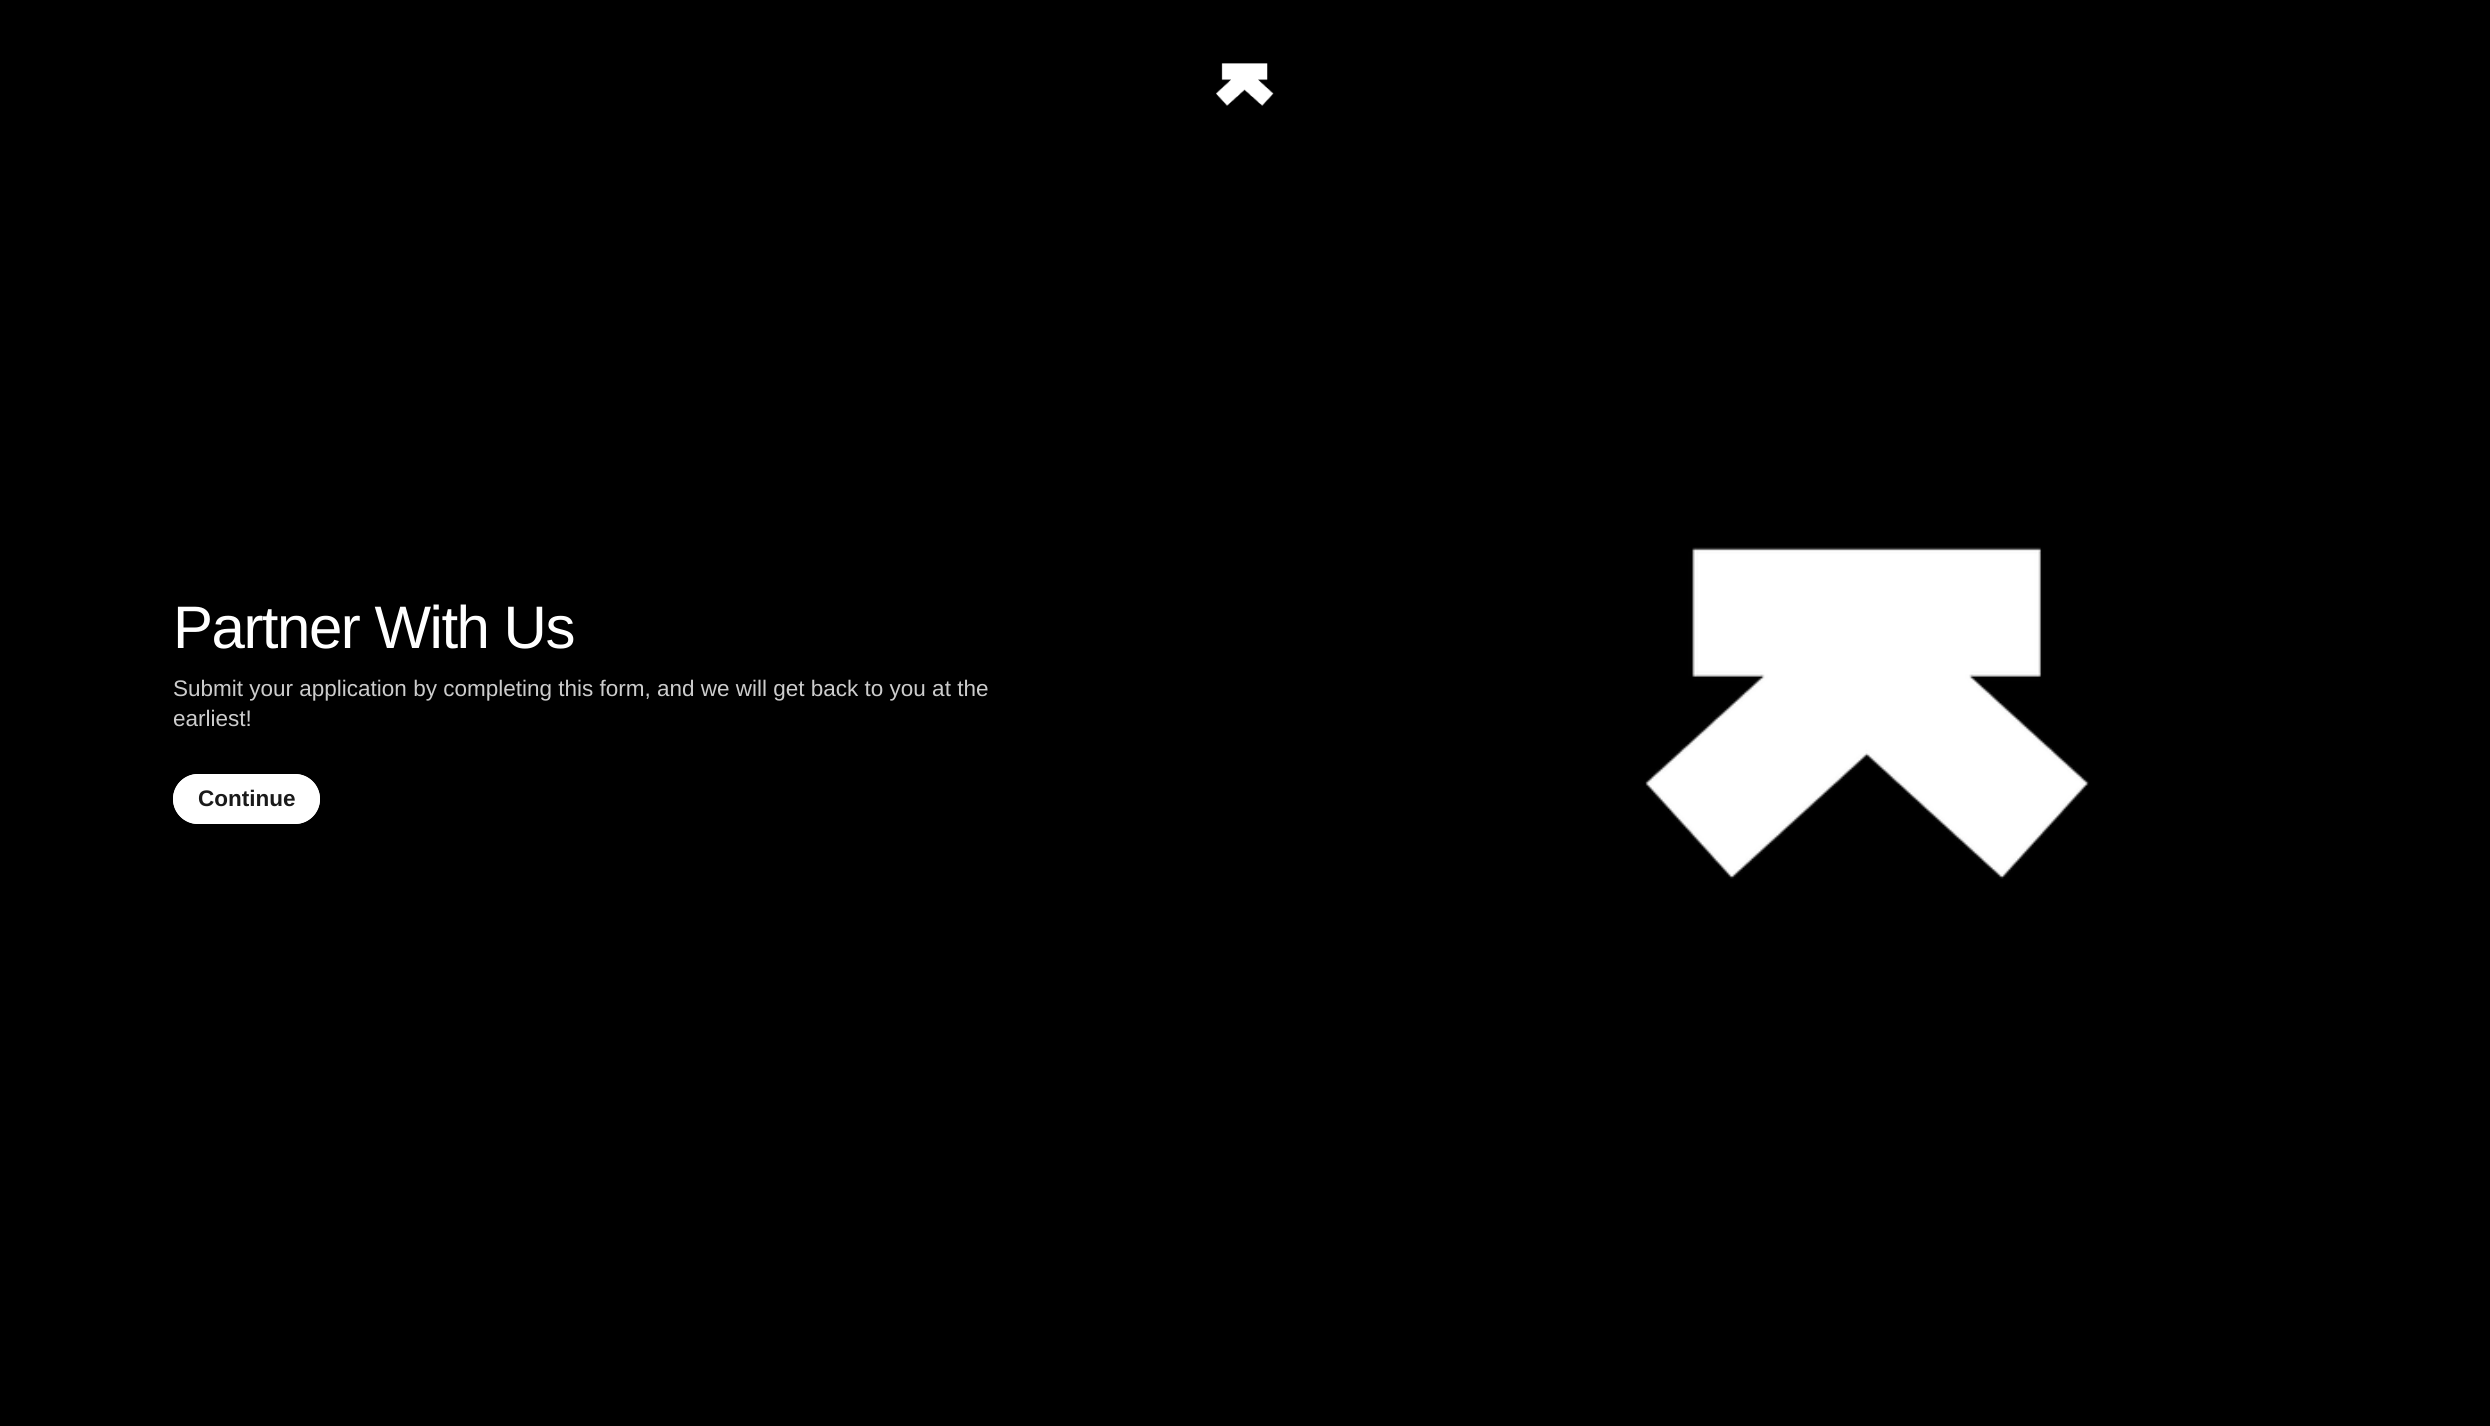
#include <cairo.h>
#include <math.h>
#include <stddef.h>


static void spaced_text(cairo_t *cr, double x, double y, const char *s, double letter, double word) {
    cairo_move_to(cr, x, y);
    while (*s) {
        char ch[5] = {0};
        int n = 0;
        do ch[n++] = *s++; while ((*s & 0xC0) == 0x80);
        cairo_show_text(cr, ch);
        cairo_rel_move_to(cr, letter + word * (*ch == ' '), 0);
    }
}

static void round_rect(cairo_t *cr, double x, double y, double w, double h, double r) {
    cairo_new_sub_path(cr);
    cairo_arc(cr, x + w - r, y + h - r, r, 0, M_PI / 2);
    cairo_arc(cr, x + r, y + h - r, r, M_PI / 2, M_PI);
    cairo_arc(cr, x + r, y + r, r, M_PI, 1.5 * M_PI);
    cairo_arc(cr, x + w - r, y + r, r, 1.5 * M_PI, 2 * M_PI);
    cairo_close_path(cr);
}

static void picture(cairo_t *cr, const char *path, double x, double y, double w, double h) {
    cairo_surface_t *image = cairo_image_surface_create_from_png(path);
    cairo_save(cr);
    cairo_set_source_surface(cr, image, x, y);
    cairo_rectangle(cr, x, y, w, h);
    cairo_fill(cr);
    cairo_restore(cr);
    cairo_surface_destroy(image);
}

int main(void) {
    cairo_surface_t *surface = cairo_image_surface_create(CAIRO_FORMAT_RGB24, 2490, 1426);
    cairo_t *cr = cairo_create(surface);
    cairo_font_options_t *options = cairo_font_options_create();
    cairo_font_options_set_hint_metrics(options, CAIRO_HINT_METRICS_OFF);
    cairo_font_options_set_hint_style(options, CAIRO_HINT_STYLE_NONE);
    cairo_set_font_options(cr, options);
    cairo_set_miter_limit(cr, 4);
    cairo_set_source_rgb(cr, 0, 0, 0);
    cairo_paint(cr);
    picture(cr, "img1.png", 1216, 63, 58, 43);
    cairo_select_font_face(cr, "Liberation Sans", CAIRO_FONT_SLANT_NORMAL, CAIRO_FONT_WEIGHT_NORMAL);
    cairo_set_font_size(cr, 60);
    cairo_set_source_rgb(cr, 1, 1, 1);
    spaced_text(cr, 173, 648, "Partner With Us", -1.5, 0);
    cairo_set_font_size(cr, 22.5);
    cairo_set_source_rgb(cr, 0.8, 0.8, 0.8);
    cairo_move_to(cr, 173, 696);
    cairo_show_text(cr, "Submit your application by completing this form, and we will get back to you at the");
    cairo_move_to(cr, 173, 726);
    cairo_show_text(cr, "earliest!");
    round_rect(cr, 173.5, 774.5, 146, 49, 24.5);
    cairo_set_source_rgb(cr, 1, 1, 1);
    cairo_set_line_width(cr, 1);
    cairo_stroke(cr);
    round_rect(cr, 173, 774, 147, 50, 25);
    cairo_fill(cr);
    cairo_select_font_face(cr, "Liberation Sans", CAIRO_FONT_SLANT_NORMAL, CAIRO_FONT_WEIGHT_BOLD);
    cairo_set_source_rgb(cr, 0.102, 0.102, 0.102);
    cairo_move_to(cr, 198, 806);
    cairo_show_text(cr, "Continue");
    picture(cr, "img2.png", 1645, 547, 444, 332);
    cairo_surface_write_to_png(surface, "page.png");
    cairo_font_options_destroy(options);
    cairo_destroy(cr);
    cairo_surface_destroy(surface);
    return 0;
}
